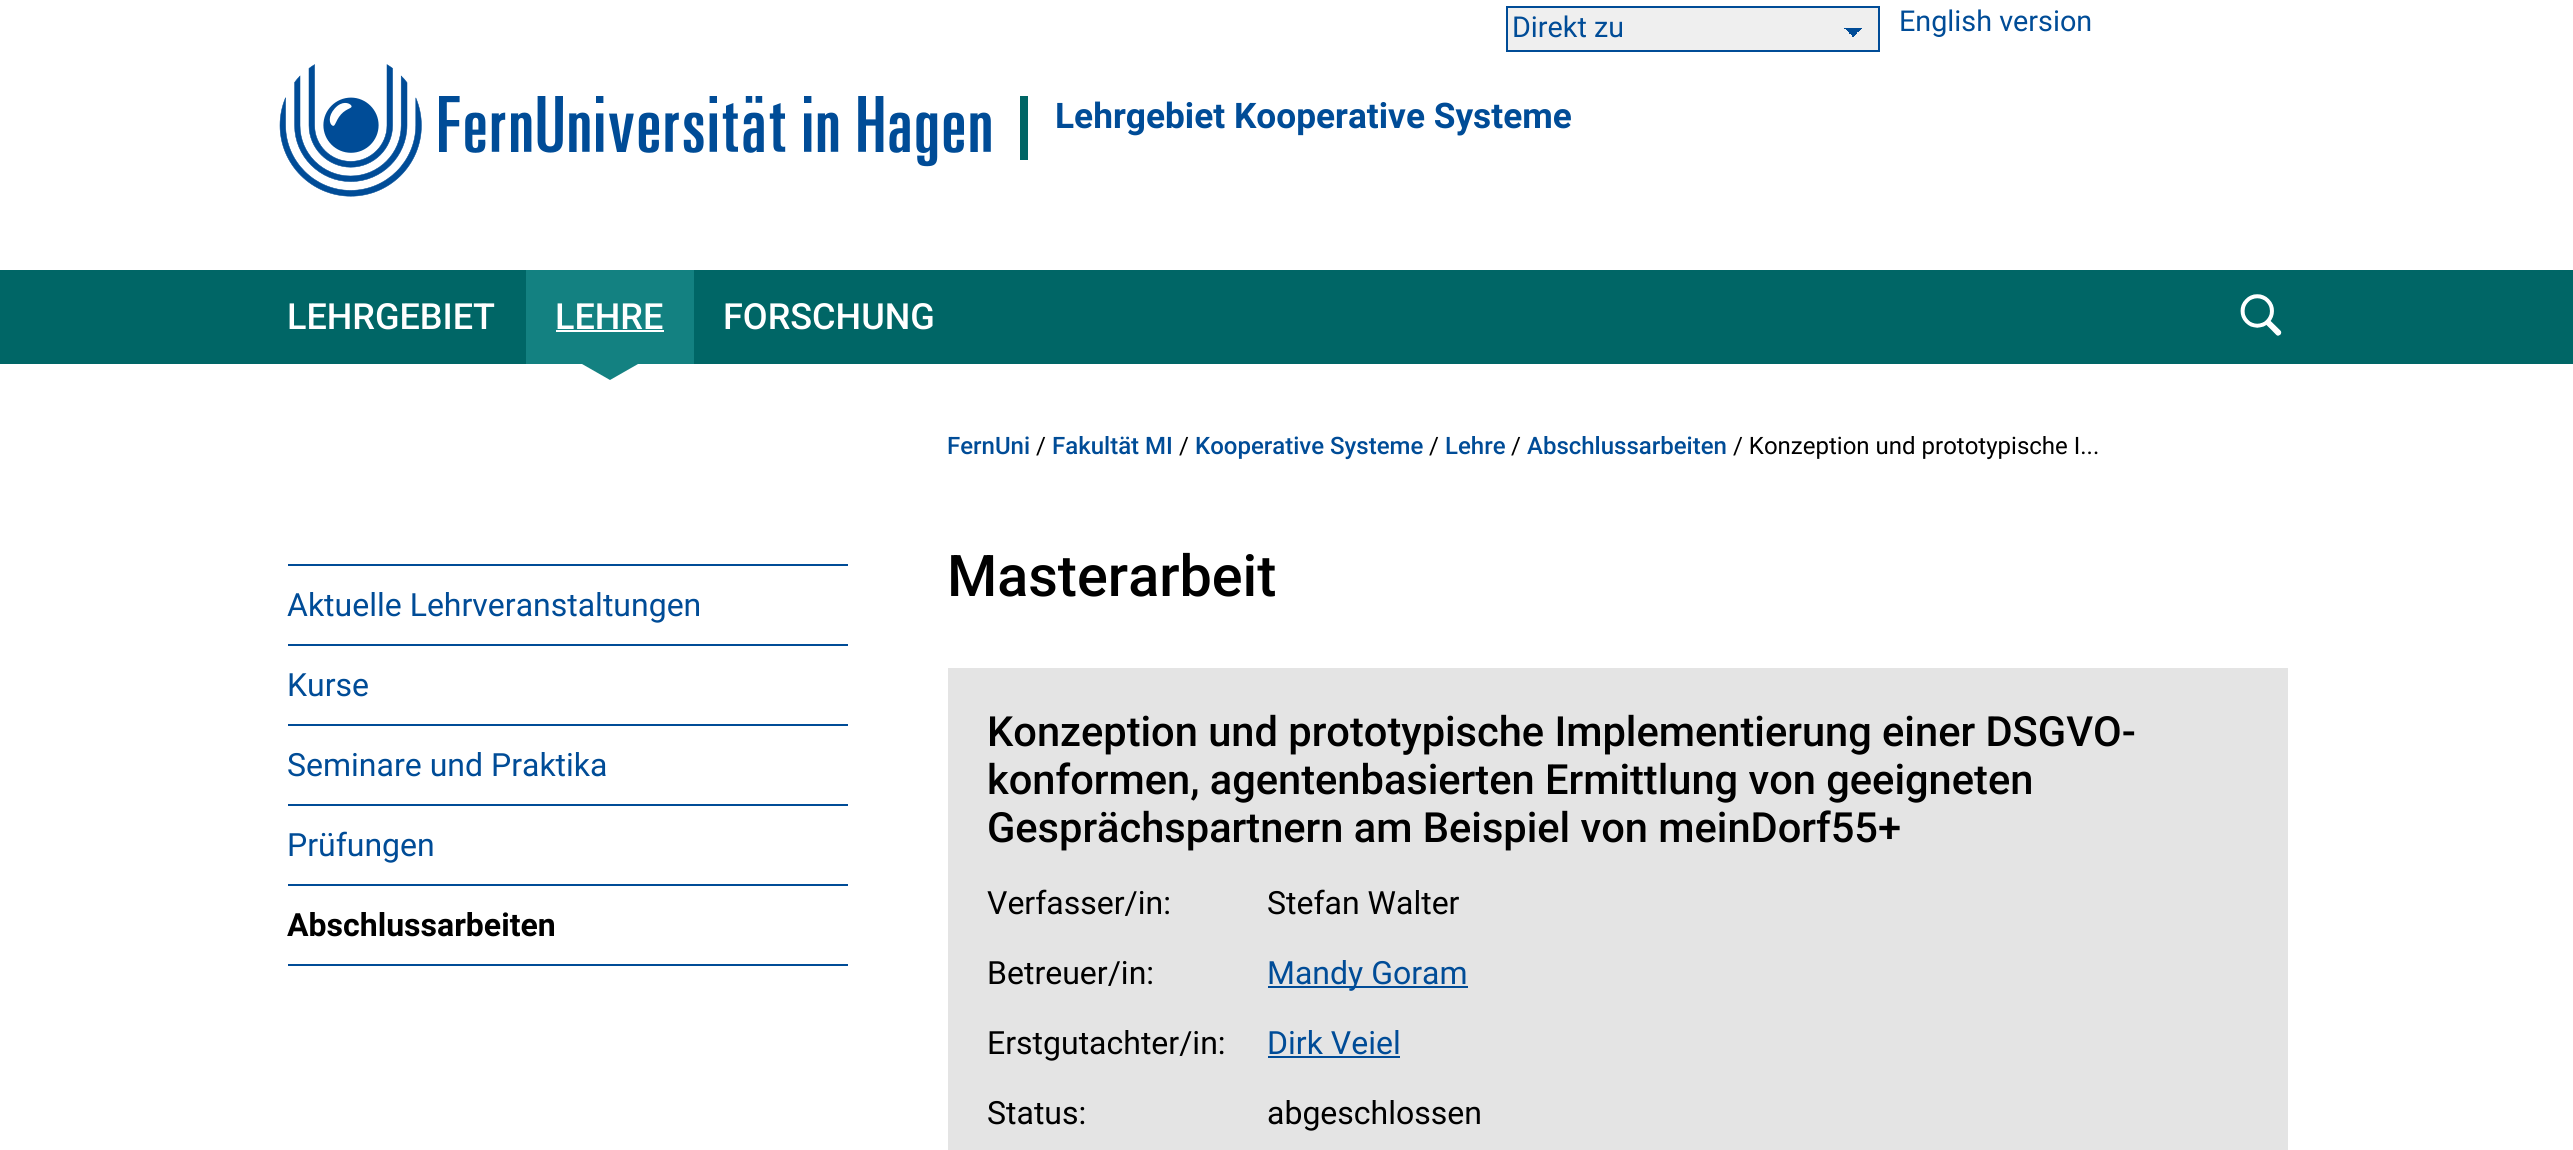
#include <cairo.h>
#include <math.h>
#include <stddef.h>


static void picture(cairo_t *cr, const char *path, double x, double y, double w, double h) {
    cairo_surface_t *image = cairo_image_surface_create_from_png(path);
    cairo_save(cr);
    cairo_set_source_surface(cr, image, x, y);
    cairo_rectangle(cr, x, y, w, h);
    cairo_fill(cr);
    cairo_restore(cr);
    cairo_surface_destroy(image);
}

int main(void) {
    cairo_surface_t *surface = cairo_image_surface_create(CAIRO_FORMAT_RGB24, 2573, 1150);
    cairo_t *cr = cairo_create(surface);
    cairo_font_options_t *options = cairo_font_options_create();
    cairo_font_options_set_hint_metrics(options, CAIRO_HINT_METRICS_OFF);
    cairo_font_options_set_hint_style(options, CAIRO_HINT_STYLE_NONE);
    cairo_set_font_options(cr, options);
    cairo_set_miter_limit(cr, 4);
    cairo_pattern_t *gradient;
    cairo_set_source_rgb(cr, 1, 1, 1);
    cairo_paint(cr);
    cairo_set_source_rgb(cr, 0, 0.4, 0.4);
    cairo_rectangle(cr, 0, 270, 2573, 94);
    cairo_fill(cr);
    cairo_set_source_rgb(cr, 0.937, 0.937, 0.937);
    cairo_rectangle(cr, 1508, 8, 370, 42);
    cairo_fill(cr);
    gradient = cairo_pattern_create_linear(1852, 28, 1862, 38);
    cairo_pattern_add_color_stop_rgba(gradient, 0.5, 0, 0.298, 0.592, 1);
    cairo_pattern_add_color_stop_rgba(gradient, 0.5, 0.937, 0.937, 0.937, 1);
    cairo_set_source(cr, gradient);
    cairo_pattern_destroy(gradient);
    cairo_rectangle(cr, 1852, 28, 10, 9);
    cairo_fill(cr);
    gradient = cairo_pattern_create_linear(1844, 38, 1854, 28);
    cairo_pattern_add_color_stop_rgba(gradient, 0.5, 0, 0.298, 0.592, 0);
    cairo_pattern_add_color_stop_rgba(gradient, 0.5, 0, 0.298, 0.592, 1);
    cairo_set_source(cr, gradient);
    cairo_pattern_destroy(gradient);
    cairo_rectangle(cr, 1844, 28, 8, 7);
    cairo_fill(cr);
    cairo_rectangle(cr, 1507, 7, 372, 44);
    cairo_set_source_rgb(cr, 0, 0.298, 0.592);
    cairo_stroke(cr);
    cairo_select_font_face(cr, "Roboto", CAIRO_FONT_SLANT_NORMAL, CAIRO_FONT_WEIGHT_NORMAL);
    cairo_set_font_size(cr, 28.75);
    cairo_move_to(cr, 1512, 37);
    cairo_show_text(cr, "Direkt zu");
    cairo_move_to(cr, 1899, 31);
    cairo_show_text(cr, "English version");
    cairo_select_font_face(cr, "Roboto Medium", CAIRO_FONT_SLANT_NORMAL, CAIRO_FONT_WEIGHT_NORMAL);
    cairo_set_font_size(cr, 36);
    cairo_set_source_rgb(cr, 1, 1, 1);
    cairo_move_to(cr, 287, 329);
    cairo_show_text(cr, "LEHRGEBIET");
    cairo_set_source_rgb(cr, 0.078, 0.506, 0.506);
    cairo_rectangle(cr, 526, 270, 168, 94);
    cairo_fill(cr);
    cairo_set_source_rgb(cr, 1, 1, 1);
    cairo_move_to(cr, 555, 329);
    cairo_show_text(cr, "LEHRE");
    cairo_rectangle(cr, 556, 330, 108, 2);
    cairo_fill(cr);
    cairo_set_source_rgb(cr, 0.078, 0.506, 0.506);
    cairo_new_path(cr);
    cairo_move_to(cr, 582, 364);
    cairo_line_to(cr, 638, 364);
    cairo_line_to(cr, 610, 380);
    cairo_close_path(cr);
    cairo_fill(cr);
    cairo_set_source_rgb(cr, 1, 1, 1);
    cairo_move_to(cr, 723, 329);
    cairo_show_text(cr, "FORSCHUNG");
    picture(cr, "img1.png", 2240, 294, 42, 42);
    picture(cr, "img2.png", 279, 64, 712, 133);
    cairo_set_source_rgb(cr, 0, 0.4, 0.4);
    cairo_rectangle(cr, 1020, 96, 8, 64);
    cairo_fill(cr);
    cairo_select_font_face(cr, "Roboto", CAIRO_FONT_SLANT_NORMAL, CAIRO_FONT_WEIGHT_BOLD);
    cairo_set_font_size(cr, 35.25);
    cairo_set_source_rgb(cr, 0, 0.298, 0.592);
    cairo_move_to(cr, 1055, 128);
    cairo_show_text(cr, "Lehrgebiet Kooperative Systeme");
    cairo_rectangle(cr, 288, 964, 560, 2);
    cairo_fill(cr);
    cairo_rectangle(cr, 288, 564, 560, 2);
    cairo_fill(cr);
    cairo_select_font_face(cr, "Roboto", CAIRO_FONT_SLANT_NORMAL, CAIRO_FONT_WEIGHT_NORMAL);
    cairo_set_font_size(cr, 32);
    cairo_move_to(cr, 287, 616);
    cairo_show_text(cr, "Aktuelle Lehrveranstaltungen");
    cairo_rectangle(cr, 288, 644, 560, 2);
    cairo_fill(cr);
    cairo_move_to(cr, 287, 696);
    cairo_show_text(cr, "Kurse");
    cairo_rectangle(cr, 288, 724, 560, 2);
    cairo_fill(cr);
    cairo_move_to(cr, 287, 776);
    cairo_show_text(cr, "Seminare und Praktika");
    cairo_rectangle(cr, 288, 804, 560, 2);
    cairo_fill(cr);
    cairo_move_to(cr, 287, 856);
    cairo_show_text(cr, "Prüfungen");
    cairo_rectangle(cr, 288, 884, 560, 2);
    cairo_fill(cr);
    cairo_select_font_face(cr, "Roboto", CAIRO_FONT_SLANT_NORMAL, CAIRO_FONT_WEIGHT_BOLD);
    cairo_set_source_rgb(cr, 0, 0, 0);
    cairo_move_to(cr, 287, 936);
    cairo_show_text(cr, "Abschlussarbeiten");
    cairo_select_font_face(cr, "Roboto Medium", CAIRO_FONT_SLANT_NORMAL, CAIRO_FONT_WEIGHT_NORMAL);
    cairo_set_font_size(cr, 24);
    cairo_set_source_rgb(cr, 0, 0.298, 0.592);
    cairo_move_to(cr, 947, 454);
    cairo_show_text(cr, "FernUni");
    cairo_select_font_face(cr, "Roboto", CAIRO_FONT_SLANT_NORMAL, CAIRO_FONT_WEIGHT_NORMAL);
    cairo_set_source_rgb(cr, 0, 0, 0);
    cairo_move_to(cr, 1036, 454);
    cairo_show_text(cr, "/");
    cairo_select_font_face(cr, "Roboto Medium", CAIRO_FONT_SLANT_NORMAL, CAIRO_FONT_WEIGHT_NORMAL);
    cairo_set_source_rgb(cr, 0, 0.298, 0.592);
    cairo_move_to(cr, 1052, 454);
    cairo_show_text(cr, "Fakultät MI");
    cairo_select_font_face(cr, "Roboto", CAIRO_FONT_SLANT_NORMAL, CAIRO_FONT_WEIGHT_NORMAL);
    cairo_set_source_rgb(cr, 0, 0, 0);
    cairo_move_to(cr, 1179, 454);
    cairo_show_text(cr, "/");
    cairo_select_font_face(cr, "Roboto Medium", CAIRO_FONT_SLANT_NORMAL, CAIRO_FONT_WEIGHT_NORMAL);
    cairo_set_source_rgb(cr, 0, 0.298, 0.592);
    cairo_move_to(cr, 1195, 454);
    cairo_show_text(cr, "Kooperative Systeme");
    cairo_select_font_face(cr, "Roboto", CAIRO_FONT_SLANT_NORMAL, CAIRO_FONT_WEIGHT_NORMAL);
    cairo_set_source_rgb(cr, 0, 0, 0);
    cairo_move_to(cr, 1429, 454);
    cairo_show_text(cr, "/");
    cairo_select_font_face(cr, "Roboto Medium", CAIRO_FONT_SLANT_NORMAL, CAIRO_FONT_WEIGHT_NORMAL);
    cairo_set_source_rgb(cr, 0, 0.298, 0.592);
    cairo_move_to(cr, 1445, 454);
    cairo_show_text(cr, "Lehre");
    cairo_select_font_face(cr, "Roboto", CAIRO_FONT_SLANT_NORMAL, CAIRO_FONT_WEIGHT_NORMAL);
    cairo_set_source_rgb(cr, 0, 0, 0);
    cairo_move_to(cr, 1511, 454);
    cairo_show_text(cr, "/");
    cairo_select_font_face(cr, "Roboto Medium", CAIRO_FONT_SLANT_NORMAL, CAIRO_FONT_WEIGHT_NORMAL);
    cairo_set_source_rgb(cr, 0, 0.298, 0.592);
    cairo_move_to(cr, 1527, 454);
    cairo_show_text(cr, "Abschlussarbeiten");
    cairo_select_font_face(cr, "Roboto", CAIRO_FONT_SLANT_NORMAL, CAIRO_FONT_WEIGHT_NORMAL);
    cairo_set_source_rgb(cr, 0, 0, 0);
    cairo_move_to(cr, 1733, 454);
    cairo_show_text(cr, "/ Konzeption und prototypische I...");
    cairo_select_font_face(cr, "Roboto Medium", CAIRO_FONT_SLANT_NORMAL, CAIRO_FONT_WEIGHT_NORMAL);
    cairo_set_font_size(cr, 57.5);
    cairo_move_to(cr, 947, 596);
    cairo_show_text(cr, "Masterarbeit");
    cairo_set_source_rgb(cr, 0.894, 0.894, 0.894);
    cairo_rectangle(cr, 948, 668, 1340, 482);
    cairo_fill(cr);
    cairo_set_font_size(cr, 41.6);
    cairo_set_source_rgb(cr, 0, 0, 0);
    cairo_move_to(cr, 987, 746);
    cairo_show_text(cr, "Konzeption und prototypische Implementierung einer DSGVO-");
    cairo_move_to(cr, 987, 794);
    cairo_show_text(cr, "konformen, agentenbasierten Ermittlung von geeigneten");
    cairo_move_to(cr, 987, 842);
    cairo_show_text(cr, "Gesprächspartnern am Beispiel von meinDorf55+");
    cairo_select_font_face(cr, "Roboto", CAIRO_FONT_SLANT_NORMAL, CAIRO_FONT_WEIGHT_NORMAL);
    cairo_set_font_size(cr, 32);
    cairo_move_to(cr, 987, 914);
    cairo_show_text(cr, "Verfasser/in:");
    cairo_move_to(cr, 1267, 914);
    cairo_show_text(cr, "Stefan Walter");
    cairo_move_to(cr, 987, 984);
    cairo_show_text(cr, "Betreuer/in:");
    cairo_set_source_rgb(cr, 0, 0.298, 0.592);
    cairo_rectangle(cr, 1268, 986, 200, 2);
    cairo_fill(cr);
    cairo_move_to(cr, 1267, 984);
    cairo_show_text(cr, "Mandy Goram");
    cairo_set_source_rgb(cr, 0, 0, 0);
    cairo_move_to(cr, 987, 1054);
    cairo_show_text(cr, "Erstgutachter/in:");
    cairo_set_source_rgb(cr, 0, 0.298, 0.592);
    cairo_move_to(cr, 1267, 1054);
    cairo_show_text(cr, "Dirk Veiel");
    cairo_rectangle(cr, 1268, 1056, 132, 2);
    cairo_fill(cr);
    cairo_set_source_rgb(cr, 0, 0, 0);
    cairo_move_to(cr, 987, 1124);
    cairo_show_text(cr, "Status:");
    cairo_move_to(cr, 1267, 1124);
    cairo_show_text(cr, "abgeschlossen");
    cairo_surface_write_to_png(surface, "page.png");
    cairo_font_options_destroy(options);
    cairo_destroy(cr);
    cairo_surface_destroy(surface);
    return 0;
}
